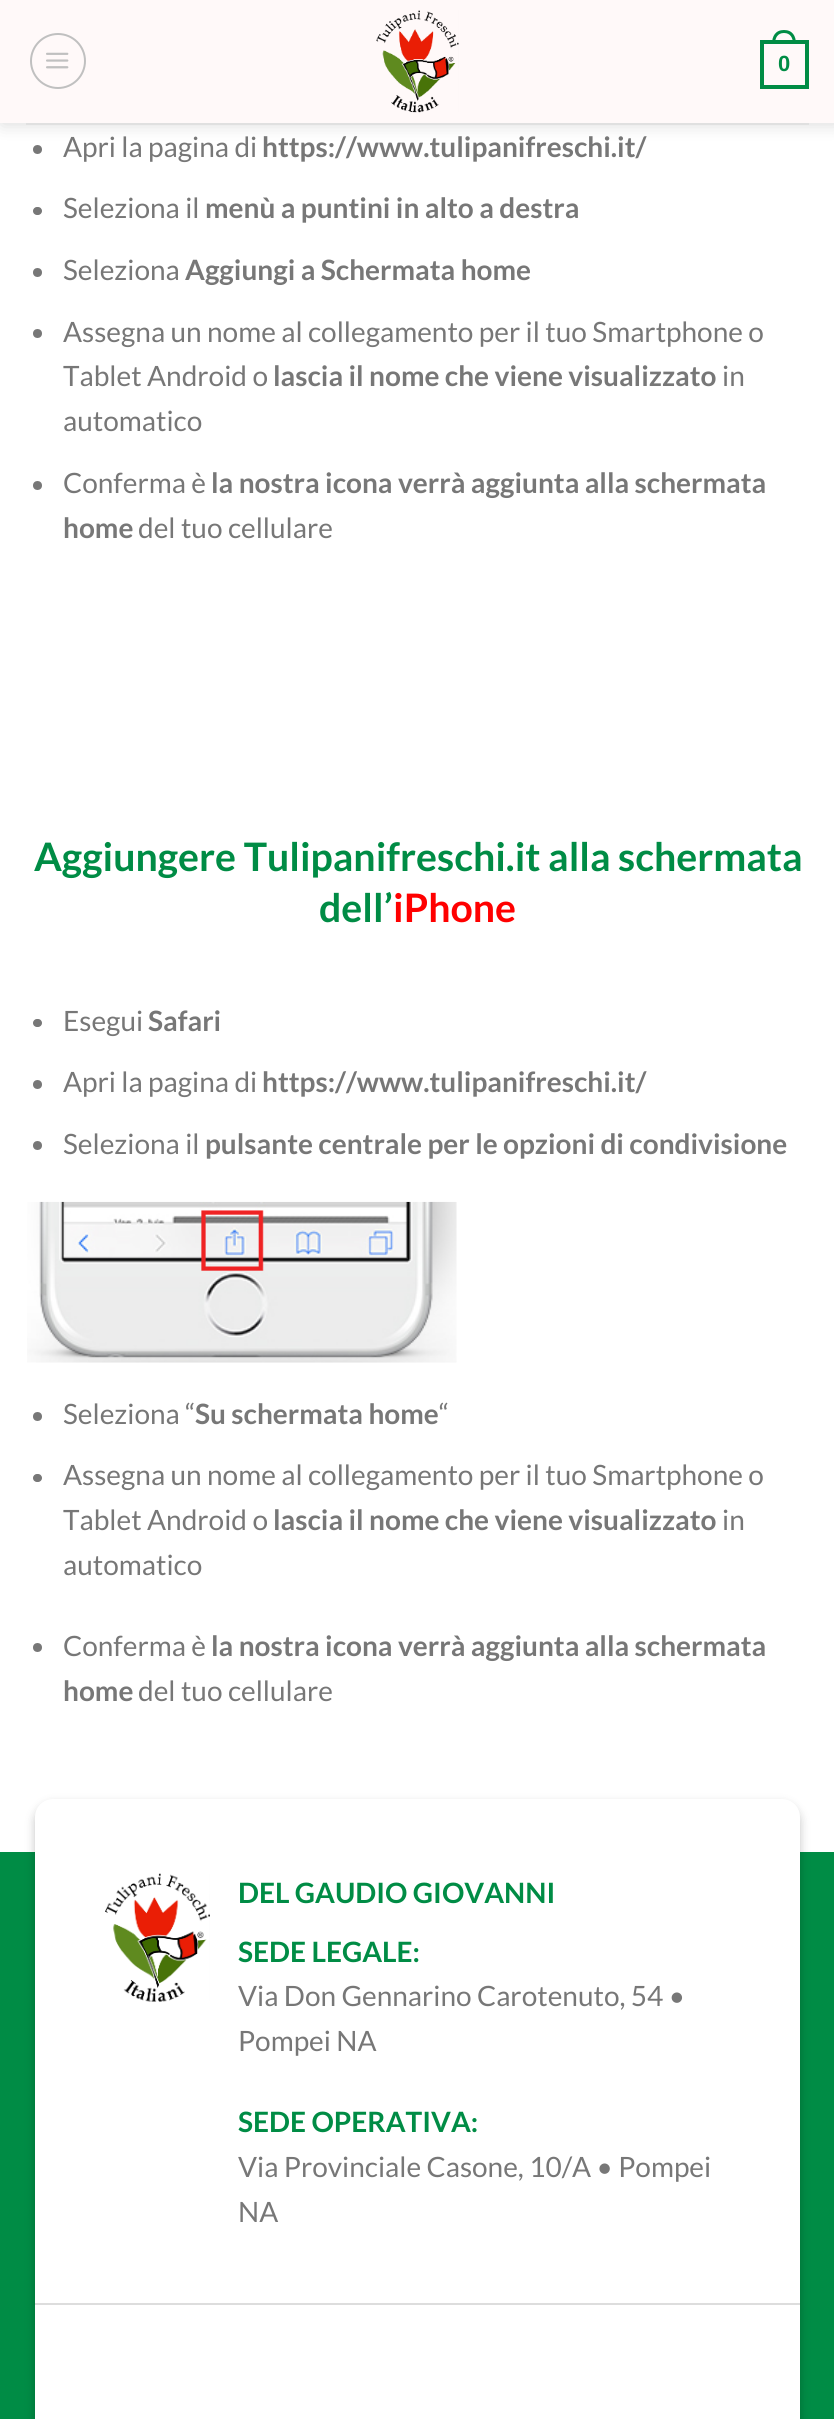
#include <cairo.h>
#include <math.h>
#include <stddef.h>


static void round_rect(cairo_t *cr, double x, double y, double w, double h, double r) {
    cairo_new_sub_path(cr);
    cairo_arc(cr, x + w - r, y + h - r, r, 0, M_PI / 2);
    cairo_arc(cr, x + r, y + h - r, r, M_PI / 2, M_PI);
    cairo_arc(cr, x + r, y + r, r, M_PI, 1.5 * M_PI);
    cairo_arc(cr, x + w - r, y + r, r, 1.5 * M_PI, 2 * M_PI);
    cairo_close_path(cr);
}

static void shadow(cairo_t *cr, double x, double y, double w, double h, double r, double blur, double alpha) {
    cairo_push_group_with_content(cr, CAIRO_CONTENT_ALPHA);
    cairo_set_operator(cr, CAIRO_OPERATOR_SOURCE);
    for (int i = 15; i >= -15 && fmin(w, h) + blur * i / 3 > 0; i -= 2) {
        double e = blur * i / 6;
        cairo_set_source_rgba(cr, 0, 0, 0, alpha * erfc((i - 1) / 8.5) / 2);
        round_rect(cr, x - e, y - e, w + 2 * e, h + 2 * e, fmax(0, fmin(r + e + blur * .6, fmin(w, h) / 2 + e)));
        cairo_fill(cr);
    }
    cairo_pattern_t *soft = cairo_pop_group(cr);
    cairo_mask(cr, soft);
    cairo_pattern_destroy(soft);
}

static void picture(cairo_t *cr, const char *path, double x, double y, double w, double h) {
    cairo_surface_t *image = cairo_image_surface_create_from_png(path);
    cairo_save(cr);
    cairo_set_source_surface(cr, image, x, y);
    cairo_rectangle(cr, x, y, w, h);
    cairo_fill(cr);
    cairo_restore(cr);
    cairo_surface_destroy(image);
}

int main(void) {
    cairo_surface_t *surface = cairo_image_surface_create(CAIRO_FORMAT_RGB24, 834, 2419);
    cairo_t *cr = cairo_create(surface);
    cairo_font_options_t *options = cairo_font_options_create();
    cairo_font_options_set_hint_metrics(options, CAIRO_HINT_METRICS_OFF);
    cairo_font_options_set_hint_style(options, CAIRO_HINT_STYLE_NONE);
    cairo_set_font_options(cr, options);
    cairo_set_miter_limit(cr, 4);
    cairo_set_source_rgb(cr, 1, 1, 1);
    cairo_paint(cr);
    cairo_set_source_rgb(cr, 0.467, 0.467, 0.467);
    cairo_arc(cr, 37.5, 149.5, 4.5, 0, 2 * M_PI);
    cairo_fill(cr);
    cairo_set_source_rgb(cr, 0, 0, 0);
    shadow(cr, 2, 2, 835, 122, 0, 9, 0.15);
    cairo_set_source_rgb(cr, 1, 0.976, 0.976);
    cairo_rectangle(cr, 0, 0, 834, 123);
    cairo_fill(cr);
    cairo_arc(cr, 58, 61, 27, 0, 2 * M_PI);
    cairo_set_source_rgb(cr, 0.753, 0.753, 0.753);
    cairo_stroke(cr);
    picture(cr, "img1.png", 46, 52, 23, 17);
    picture(cr, "img2.png", 376, 10, 83, 103);
    cairo_rectangle(cr, 762, 42, 45, 45);
    cairo_set_source_rgb(cr, 0, 0.549, 0.271);
    cairo_set_line_width(cr, 4);
    cairo_stroke(cr);
    cairo_set_fill_rule(cr, CAIRO_FILL_RULE_EVEN_ODD);
    cairo_new_path(cr);
    cairo_move_to(cr, 784, 30);
    cairo_curve_to(cr, 792.5, 30, 796, 36, 796, 44);
    cairo_line_to(cr, 772, 44);
    cairo_curve_to(cr, 772, 36, 775.5, 30, 784, 30);
    cairo_close_path(cr);
    cairo_move_to(cr, 784, 33);
    cairo_curve_to(cr, 790.5, 33, 793, 38, 793, 44);
    cairo_line_to(cr, 775, 44);
    cairo_curve_to(cr, 775, 38, 777.5, 33, 784, 33);
    cairo_close_path(cr);
    cairo_fill(cr);
    cairo_select_font_face(cr, "Liberation Sans", CAIRO_FONT_SLANT_NORMAL, CAIRO_FONT_WEIGHT_BOLD);
    cairo_set_font_size(cr, 22);
    cairo_move_to(cr, 778, 71);
    cairo_show_text(cr, "0");
    cairo_set_source_rgb(cr, 0.878, 0.878, 0.878);
    cairo_rectangle(cr, 26, 123, 783, 2);
    cairo_fill(cr);
    cairo_select_font_face(cr, "Lato", CAIRO_FONT_SLANT_NORMAL, CAIRO_FONT_WEIGHT_NORMAL);
    cairo_set_font_size(cr, 28);
    cairo_set_source_rgb(cr, 0.467, 0.467, 0.467);
    cairo_move_to(cr, 63, 157);
    cairo_show_text(cr, "Apri la pagina di");
    cairo_select_font_face(cr, "Lato", CAIRO_FONT_SLANT_NORMAL, CAIRO_FONT_WEIGHT_BOLD);
    cairo_move_to(cr, 262, 157);
    cairo_show_text(cr, "https://www.tulipanifreschi.it/");
    round_rect(cr, 33, 207, 9, 8, 4);
    cairo_fill(cr);
    cairo_select_font_face(cr, "Lato", CAIRO_FONT_SLANT_NORMAL, CAIRO_FONT_WEIGHT_NORMAL);
    cairo_move_to(cr, 63, 218);
    cairo_show_text(cr, "Seleziona il");
    cairo_select_font_face(cr, "Lato", CAIRO_FONT_SLANT_NORMAL, CAIRO_FONT_WEIGHT_BOLD);
    cairo_move_to(cr, 205, 218);
    cairo_show_text(cr, "menù a puntini in alto a destra");
    cairo_new_path(cr);
    cairo_arc(cr, 37.5, 272.5, 4.5, 0, 2 * M_PI);
    cairo_fill(cr);
    cairo_select_font_face(cr, "Lato", CAIRO_FONT_SLANT_NORMAL, CAIRO_FONT_WEIGHT_NORMAL);
    cairo_move_to(cr, 63, 280);
    cairo_show_text(cr, "Seleziona");
    cairo_select_font_face(cr, "Lato", CAIRO_FONT_SLANT_NORMAL, CAIRO_FONT_WEIGHT_BOLD);
    cairo_move_to(cr, 185, 280);
    cairo_show_text(cr, "Aggiungi a Schermata home");
    cairo_new_path(cr);
    cairo_arc(cr, 37.5, 333.5, 4.5, 0, 2 * M_PI);
    cairo_fill(cr);
    cairo_select_font_face(cr, "Lato", CAIRO_FONT_SLANT_NORMAL, CAIRO_FONT_WEIGHT_NORMAL);
    cairo_move_to(cr, 63, 342);
    cairo_show_text(cr, "Assegna un nome al collegamento per il tuo Smartphone o");
    cairo_move_to(cr, 63, 386);
    cairo_show_text(cr, "Tablet Android o");
    cairo_select_font_face(cr, "Lato", CAIRO_FONT_SLANT_NORMAL, CAIRO_FONT_WEIGHT_BOLD);
    cairo_move_to(cr, 273, 386);
    cairo_show_text(cr, "lascia il nome che viene visualizzato");
    cairo_select_font_face(cr, "Lato", CAIRO_FONT_SLANT_NORMAL, CAIRO_FONT_WEIGHT_NORMAL);
    cairo_move_to(cr, 722, 386);
    cairo_show_text(cr, "in");
    cairo_move_to(cr, 63, 431);
    cairo_show_text(cr, "automatico");
    cairo_new_path(cr);
    cairo_arc(cr, 37.5, 485.5, 4.5, 0, 2 * M_PI);
    cairo_fill(cr);
    cairo_move_to(cr, 63, 493);
    cairo_show_text(cr, "Conferma è");
    cairo_select_font_face(cr, "Lato", CAIRO_FONT_SLANT_NORMAL, CAIRO_FONT_WEIGHT_BOLD);
    cairo_move_to(cr, 211, 493);
    cairo_show_text(cr, "la nostra icona verrà aggiunta alla schermata");
    cairo_move_to(cr, 63, 538);
    cairo_show_text(cr, "home");
    cairo_select_font_face(cr, "Lato", CAIRO_FONT_SLANT_NORMAL, CAIRO_FONT_WEIGHT_NORMAL);
    cairo_move_to(cr, 138, 538);
    cairo_show_text(cr, "del tuo cellulare");
    cairo_select_font_face(cr, "Lato", CAIRO_FONT_SLANT_NORMAL, CAIRO_FONT_WEIGHT_BOLD);
    cairo_set_font_size(cr, 39.25);
    cairo_set_source_rgb(cr, 0, 0.549, 0.271);
    cairo_move_to(cr, 34, 871);
    cairo_show_text(cr, "Aggiungere Tulipanifreschi.it alla schermata");
    cairo_move_to(cr, 319, 922);
    cairo_show_text(cr, "dell’");
    cairo_set_source_rgb(cr, 1, 0, 0);
    cairo_move_to(cr, 393, 922);
    cairo_show_text(cr, "iPhone");
    cairo_set_source_rgb(cr, 0.467, 0.467, 0.467);
    round_rect(cr, 33, 1019, 9, 8, 4);
    cairo_fill(cr);
    cairo_select_font_face(cr, "Lato", CAIRO_FONT_SLANT_NORMAL, CAIRO_FONT_WEIGHT_NORMAL);
    cairo_set_font_size(cr, 28);
    cairo_move_to(cr, 63, 1031);
    cairo_show_text(cr, "Esegui");
    cairo_select_font_face(cr, "Lato", CAIRO_FONT_SLANT_NORMAL, CAIRO_FONT_WEIGHT_BOLD);
    cairo_move_to(cr, 148, 1031);
    cairo_show_text(cr, "Safari");
    cairo_new_path(cr);
    cairo_arc(cr, 37.5, 1084.5, 4.5, 0, 2 * M_PI);
    cairo_fill(cr);
    cairo_select_font_face(cr, "Lato", CAIRO_FONT_SLANT_NORMAL, CAIRO_FONT_WEIGHT_NORMAL);
    cairo_move_to(cr, 63, 1092);
    cairo_show_text(cr, "Apri la pagina di");
    cairo_select_font_face(cr, "Lato", CAIRO_FONT_SLANT_NORMAL, CAIRO_FONT_WEIGHT_BOLD);
    cairo_move_to(cr, 262, 1092);
    cairo_show_text(cr, "https://www.tulipanifreschi.it/");
    cairo_new_path(cr);
    cairo_arc(cr, 37.5, 1145.5, 4.5, 0, 2 * M_PI);
    cairo_fill(cr);
    cairo_select_font_face(cr, "Lato", CAIRO_FONT_SLANT_NORMAL, CAIRO_FONT_WEIGHT_NORMAL);
    cairo_move_to(cr, 63, 1154);
    cairo_show_text(cr, "Seleziona il");
    cairo_select_font_face(cr, "Lato", CAIRO_FONT_SLANT_NORMAL, CAIRO_FONT_WEIGHT_BOLD);
    cairo_move_to(cr, 205, 1154);
    cairo_show_text(cr, "pulsante centrale per le opzioni di condivisione");
    picture(cr, "img3.png", 27, 1201, 430, 162);
    cairo_arc(cr, 37.5, 1416.5, 4.5, 0, 2 * M_PI);
    cairo_fill(cr);
    cairo_select_font_face(cr, "Lato", CAIRO_FONT_SLANT_NORMAL, CAIRO_FONT_WEIGHT_NORMAL);
    cairo_move_to(cr, 63, 1424);
    cairo_show_text(cr, "Seleziona “");
    cairo_select_font_face(cr, "Lato", CAIRO_FONT_SLANT_NORMAL, CAIRO_FONT_WEIGHT_BOLD);
    cairo_move_to(cr, 195, 1424);
    cairo_show_text(cr, "Su schermata home");
    cairo_select_font_face(cr, "Lato", CAIRO_FONT_SLANT_NORMAL, CAIRO_FONT_WEIGHT_NORMAL);
    cairo_move_to(cr, 439, 1424);
    cairo_show_text(cr, "“");
    round_rect(cr, 33, 1474, 9, 8, 4);
    cairo_fill(cr);
    cairo_move_to(cr, 63, 1485);
    cairo_show_text(cr, "Assegna un nome al collegamento per il tuo Smartphone o");
    cairo_move_to(cr, 63, 1530);
    cairo_show_text(cr, "Tablet Android o");
    cairo_select_font_face(cr, "Lato", CAIRO_FONT_SLANT_NORMAL, CAIRO_FONT_WEIGHT_BOLD);
    cairo_move_to(cr, 273, 1530);
    cairo_show_text(cr, "lascia il nome che viene visualizzato");
    cairo_select_font_face(cr, "Lato", CAIRO_FONT_SLANT_NORMAL, CAIRO_FONT_WEIGHT_NORMAL);
    cairo_move_to(cr, 722, 1530);
    cairo_show_text(cr, "in");
    cairo_move_to(cr, 63, 1575);
    cairo_show_text(cr, "automatico");
    cairo_new_path(cr);
    cairo_arc(cr, 37.5, 1647.5, 4.5, 0, 2 * M_PI);
    cairo_fill(cr);
    cairo_move_to(cr, 63, 1656);
    cairo_show_text(cr, "Conferma è");
    cairo_select_font_face(cr, "Lato", CAIRO_FONT_SLANT_NORMAL, CAIRO_FONT_WEIGHT_BOLD);
    cairo_move_to(cr, 211, 1656);
    cairo_show_text(cr, "la nostra icona verrà aggiunta alla schermata");
    cairo_move_to(cr, 63, 1701);
    cairo_show_text(cr, "home");
    cairo_select_font_face(cr, "Lato", CAIRO_FONT_SLANT_NORMAL, CAIRO_FONT_WEIGHT_NORMAL);
    cairo_move_to(cr, 138, 1701);
    cairo_show_text(cr, "del tuo cellulare");
    cairo_set_source_rgb(cr, 0, 0.549, 0.271);
    cairo_rectangle(cr, 0, 1852, 834, 567);
    cairo_fill(cr);
    cairo_set_source_rgb(cr, 0, 0, 0);
    shadow(cr, 35, 1804, 765, 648, 18, 5, 0.23);
    cairo_set_source_rgb(cr, 1, 1, 1);
    round_rect(cr, 35, 1799, 765, 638, 18);
    cairo_fill(cr);
    picture(cr, "img4.png", 105, 1873, 105, 129);
    cairo_select_font_face(cr, "Lato", CAIRO_FONT_SLANT_NORMAL, CAIRO_FONT_WEIGHT_BOLD);
    cairo_set_source_rgb(cr, 0, 0.549, 0.271);
    cairo_move_to(cr, 238, 1903);
    cairo_show_text(cr, "DEL GAUDIO GIOVANNI");
    cairo_move_to(cr, 238, 1962);
    cairo_show_text(cr, "SEDE LEGALE:");
    cairo_select_font_face(cr, "Lato", CAIRO_FONT_SLANT_NORMAL, CAIRO_FONT_WEIGHT_NORMAL);
    cairo_set_source_rgb(cr, 0.467, 0.467, 0.467);
    cairo_move_to(cr, 238, 2006);
    cairo_show_text(cr, "Via Don Gennarino Carotenuto, 54 •");
    cairo_move_to(cr, 238, 2051);
    cairo_show_text(cr, "Pompei NA");
    cairo_select_font_face(cr, "Lato", CAIRO_FONT_SLANT_NORMAL, CAIRO_FONT_WEIGHT_BOLD);
    cairo_set_source_rgb(cr, 0, 0.549, 0.271);
    cairo_move_to(cr, 238, 2132);
    cairo_show_text(cr, "SEDE OPERATIVA:");
    cairo_select_font_face(cr, "Lato", CAIRO_FONT_SLANT_NORMAL, CAIRO_FONT_WEIGHT_NORMAL);
    cairo_set_source_rgb(cr, 0.467, 0.467, 0.467);
    cairo_move_to(cr, 238, 2177);
    cairo_show_text(cr, "Via Provinciale Casone, 10/A • Pompei");
    cairo_move_to(cr, 238, 2222);
    cairo_show_text(cr, "NA");
    cairo_set_source_rgb(cr, 0.867, 0.867, 0.867);
    cairo_rectangle(cr, 35, 2303, 765, 2);
    cairo_fill(cr);
    cairo_surface_write_to_png(surface, "page.png");
    cairo_font_options_destroy(options);
    cairo_destroy(cr);
    cairo_surface_destroy(surface);
    return 0;
}
